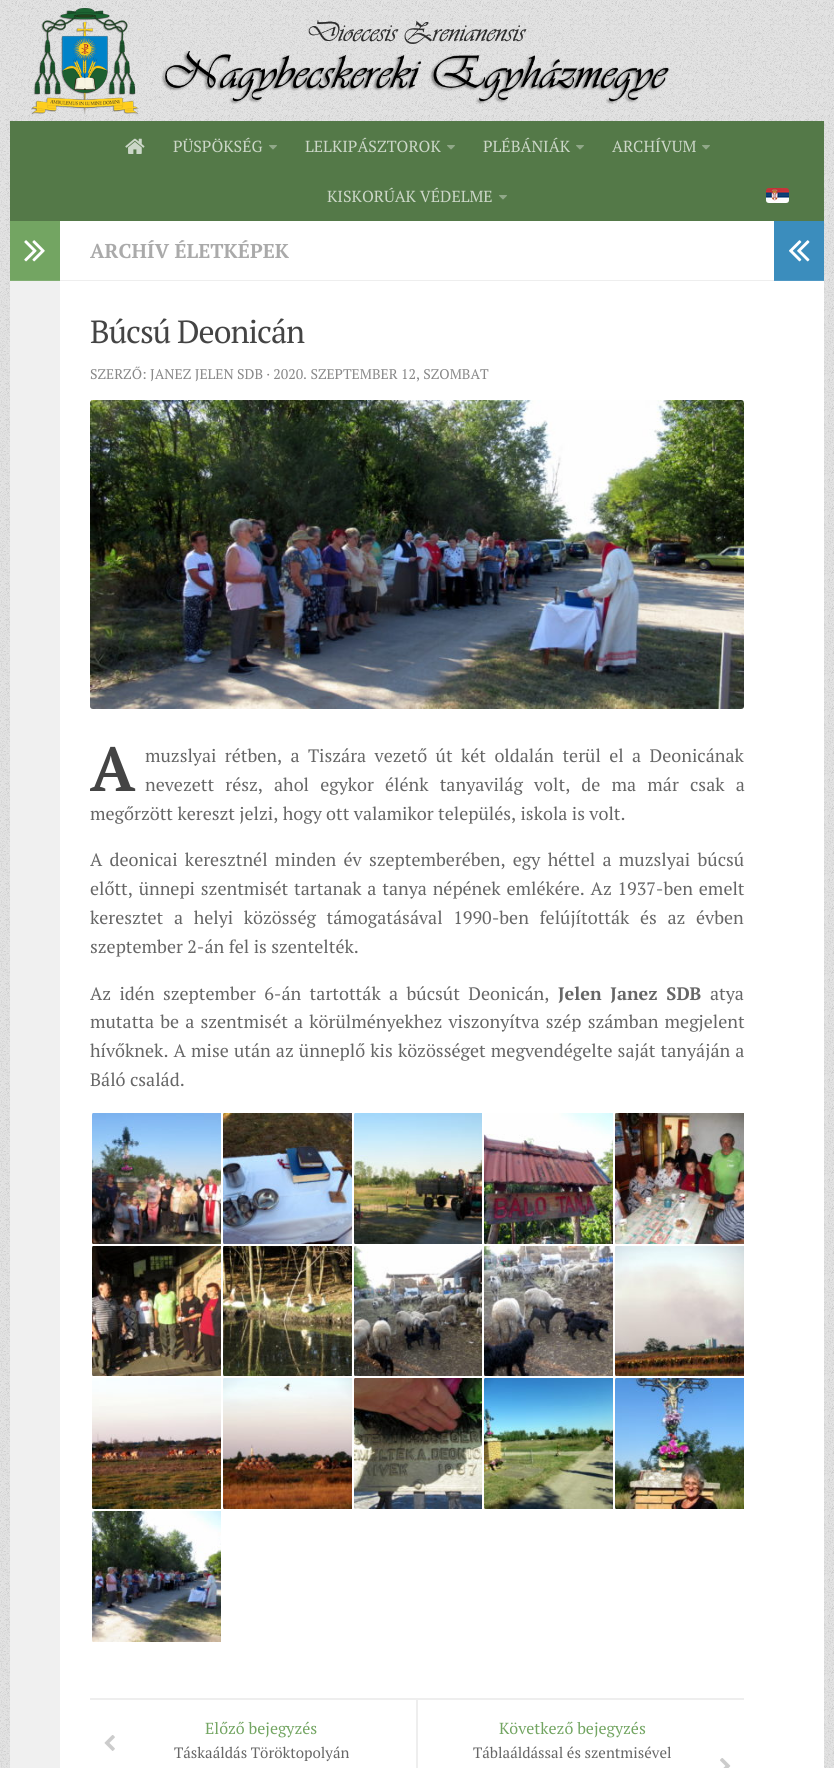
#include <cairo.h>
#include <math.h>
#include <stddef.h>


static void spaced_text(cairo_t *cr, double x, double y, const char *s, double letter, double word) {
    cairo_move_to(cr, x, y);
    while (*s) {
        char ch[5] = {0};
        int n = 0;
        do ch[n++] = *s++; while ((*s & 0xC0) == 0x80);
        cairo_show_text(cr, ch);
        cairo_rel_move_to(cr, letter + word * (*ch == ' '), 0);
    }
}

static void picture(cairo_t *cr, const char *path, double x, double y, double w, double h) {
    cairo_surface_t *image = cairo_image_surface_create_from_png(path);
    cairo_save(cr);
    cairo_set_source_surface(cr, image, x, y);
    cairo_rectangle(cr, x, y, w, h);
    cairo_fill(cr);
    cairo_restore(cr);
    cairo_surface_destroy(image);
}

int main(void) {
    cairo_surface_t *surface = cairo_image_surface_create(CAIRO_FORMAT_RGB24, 834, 1768);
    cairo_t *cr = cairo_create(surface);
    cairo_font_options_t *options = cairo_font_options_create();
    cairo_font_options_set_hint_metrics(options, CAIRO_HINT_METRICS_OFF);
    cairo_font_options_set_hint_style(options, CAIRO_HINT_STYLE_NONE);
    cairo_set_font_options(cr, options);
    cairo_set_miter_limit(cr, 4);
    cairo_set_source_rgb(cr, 1, 1, 1);
    cairo_paint(cr);
    picture(cr, "img1.png", 0, 0, 834, 1768);
    picture(cr, "img2.png", 31, 8, 638, 107);
    cairo_set_source_rgb(cr, 0.329, 0.475, 0.282);
    cairo_rectangle(cr, 10, 121, 814, 100);
    cairo_fill(cr);
    picture(cr, "img3.png", 125, 138, 20, 16);
    cairo_select_font_face(cr, "PT Serif", CAIRO_FONT_SLANT_NORMAL, CAIRO_FONT_WEIGHT_NORMAL);
    cairo_set_font_size(cr, 16);
    cairo_set_source_rgb(cr, 0.8, 0.843, 0.784);
    cairo_move_to(cr, 173, 152);
    cairo_show_text(cr, "PÜSPÖKSÉG");
    picture(cr, "img4.png", 269, 145, 8, 5);
    cairo_move_to(cr, 305, 152);
    cairo_show_text(cr, "LELKIPÁSZTOROK");
    picture(cr, "img4.png", 447, 145, 8, 5);
    cairo_move_to(cr, 483, 152);
    cairo_show_text(cr, "PLÉBÁNIÁK");
    picture(cr, "img4.png", 576, 145, 8, 5);
    cairo_move_to(cr, 612, 152);
    cairo_show_text(cr, "ARCHÍVUM");
    picture(cr, "img4.png", 702, 145, 8, 5);
    cairo_move_to(cr, 327, 202);
    cairo_show_text(cr, "KISKORÚAK VÉDELME");
    picture(cr, "img4.png", 499, 195, 8, 5);
    picture(cr, "img5.png", 766, 188, 23, 15);
    cairo_set_source_rgb(cr, 1, 1, 1);
    cairo_rectangle(cr, 60, 221, 764, 1547);
    cairo_fill(cr);
    cairo_set_source_rgb(cr, 0.941, 0.941, 0.941);
    cairo_rectangle(cr, 10, 281, 50, 1487);
    cairo_fill(cr);
    cairo_set_source_rgb(cr, 0.451, 0.647, 0.384);
    cairo_rectangle(cr, 10, 221, 50, 59);
    cairo_fill(cr);
    cairo_set_source_rgb(cr, 0.506, 0.682, 0.447);
    cairo_rectangle(cr, 10, 280, 50, 1);
    cairo_fill(cr);
    picture(cr, "img6.png", 24, 240, 21, 22);
    cairo_set_source_rgb(cr, 0.933, 0.933, 0.933);
    cairo_rectangle(cr, 60, 280, 714, 1);
    cairo_fill(cr);
    cairo_select_font_face(cr, "PT Serif", CAIRO_FONT_SLANT_NORMAL, CAIRO_FONT_WEIGHT_BOLD);
    cairo_set_font_size(cr, 20);
    cairo_set_source_rgb(cr, 0.667, 0.667, 0.667);
    cairo_move_to(cr, 90, 258);
    cairo_show_text(cr, "ARCHÍV ÉLETKÉPEK");
    cairo_select_font_face(cr, "PT Serif", CAIRO_FONT_SLANT_NORMAL, CAIRO_FONT_WEIGHT_NORMAL);
    cairo_set_font_size(cr, 32);
    cairo_set_source_rgb(cr, 0.267, 0.267, 0.267);
    spaced_text(cr, 90, 343, "Búcsú Deonicán", -1, 0);
    cairo_set_font_size(cr, 14);
    cairo_set_source_rgb(cr, 0.533, 0.533, 0.533);
    cairo_move_to(cr, 90, 379);
    cairo_show_text(cr, "SZERZŐ: JANEZ JELEN SDB · 2020. SZEPTEMBER 12, SZOMBAT");
    picture(cr, "img7.png", 90, 400, 654, 309);
    cairo_select_font_face(cr, "PT Serif", CAIRO_FONT_SLANT_NORMAL, CAIRO_FONT_WEIGHT_BOLD);
    cairo_set_font_size(cr, 62);
    cairo_set_source_rgb(cr, 0.267, 0.267, 0.267);
    cairo_move_to(cr, 90, 791);
    cairo_show_text(cr, "A");
    cairo_select_font_face(cr, "PT Serif", CAIRO_FONT_SLANT_NORMAL, CAIRO_FONT_WEIGHT_NORMAL);
    cairo_set_font_size(cr, 18);
    cairo_set_source_rgb(cr, 0.4, 0.4, 0.4);
    spaced_text(cr, 145, 762, "muzslyai rétben, a Tiszára vezető út két oldalán terül el a Deonicának", 0, 4);
    spaced_text(cr, 145, 791, "nevezett rész, ahol egykor élénk tanyavilág volt, de ma már csak a", 0, 6.75);
    cairo_move_to(cr, 90, 820);
    cairo_show_text(cr, "megőrzött kereszt jelzi, hogy ott valamikor település, iskola is volt.");
    spaced_text(cr, 90, 866, "A deonicai keresztnél minden év szeptemberében, egy héttel a muzslyai búcsú", 0, 2.9);
    spaced_text(cr, 90, 895, "előtt, ünnepi szentmisét tartanak a tanya népének emlékére. Az 1937-ben emelt", 0, 1.4);
    spaced_text(cr, 90, 924, "keresztet a helyi közösség támogatásával 1990-ben felújították és az évben", 0, 6.25);
    cairo_move_to(cr, 90, 953);
    cairo_show_text(cr, "szeptember 2-án fel is szentelték.");
    spaced_text(cr, 90, 1000, "Az idén szeptember 6-án tartották a búcsút Deonicán,", 0, 4);
    cairo_select_font_face(cr, "PT Serif", CAIRO_FONT_SLANT_NORMAL, CAIRO_FONT_WEIGHT_BOLD);
    spaced_text(cr, 558, 1000, "Jelen Janez SDB", 0, 4);
    cairo_select_font_face(cr, "PT Serif", CAIRO_FONT_SLANT_NORMAL, CAIRO_FONT_WEIGHT_NORMAL);
    cairo_move_to(cr, 710, 1000);
    cairo_show_text(cr, "atya");
    spaced_text(cr, 90, 1028, "mutatta be a szentmisét a körülményekhez viszonyítva szép számban megjelent", 0, 1.75);
    spaced_text(cr, 90, 1057, "hívőknek. A mise után az ünneplő kis közösséget megvendégelte saját tanyáján a", 0, 0.75);
    cairo_move_to(cr, 90, 1086);
    cairo_show_text(cr, "Báló család.");
    picture(cr, "img8.png", 92, 1113, 129, 131);
    picture(cr, "img9.png", 223, 1113, 129, 131);
    picture(cr, "img10.png", 354, 1113, 128, 131);
    picture(cr, "img11.png", 484, 1113, 129, 131);
    picture(cr, "img12.png", 615, 1113, 129, 131);
    picture(cr, "img13.png", 92, 1246, 129, 130);
    picture(cr, "img14.png", 223, 1246, 129, 130);
    picture(cr, "img15.png", 354, 1246, 128, 130);
    picture(cr, "img16.png", 484, 1246, 129, 130);
    picture(cr, "img17.png", 615, 1246, 129, 130);
    picture(cr, "img18.png", 92, 1378, 129, 131);
    picture(cr, "img19.png", 223, 1378, 129, 131);
    picture(cr, "img20.png", 354, 1378, 128, 131);
    picture(cr, "img21.png", 484, 1378, 129, 131);
    picture(cr, "img22.png", 615, 1378, 129, 131);
    picture(cr, "img23.png", 92, 1511, 129, 131);
    cairo_set_source_rgb(cr, 0.933, 0.933, 0.933);
    cairo_rectangle(cr, 90, 1698, 654, 2);
    cairo_fill(cr);
    cairo_set_font_size(cr, 16);
    cairo_set_source_rgb(cr, 0.451, 0.647, 0.384);
    cairo_move_to(cr, 205, 1734);
    cairo_show_text(cr, "Előző bejegyzés");
    picture(cr, "img24.png", 104, 1735, 11, 16);
    cairo_set_font_size(cr, 15);
    cairo_set_source_rgb(cr, 0.4, 0.4, 0.4);
    cairo_move_to(cr, 174, 1758);
    cairo_show_text(cr, "Táskaáldás Töröktopolyán");
    cairo_set_source_rgb(cr, 0.933, 0.933, 0.933);
    cairo_rectangle(cr, 416, 1700, 2, 68);
    cairo_fill(cr);
    cairo_set_font_size(cr, 16);
    cairo_set_source_rgb(cr, 0.451, 0.647, 0.384);
    cairo_move_to(cr, 499, 1734);
    cairo_show_text(cr, "Következő bejegyzés");
    cairo_set_font_size(cr, 15);
    cairo_set_source_rgb(cr, 0.4, 0.4, 0.4);
    cairo_move_to(cr, 473, 1758);
    cairo_show_text(cr, "Táblaáldással és szentmisével");
    picture(cr, "img25.png", 720, 1758, 11, 10);
    cairo_set_source_rgb(cr, 0.231, 0.553, 0.741);
    cairo_rectangle(cr, 774, 221, 50, 59);
    cairo_fill(cr);
    cairo_set_source_rgb(cr, 0.31, 0.596, 0.769);
    cairo_rectangle(cr, 774, 280, 50, 1);
    cairo_fill(cr);
    picture(cr, "img26.png", 789, 240, 21, 22);
    cairo_surface_write_to_png(surface, "page.png");
    cairo_font_options_destroy(options);
    cairo_destroy(cr);
    cairo_surface_destroy(surface);
    return 0;
}
